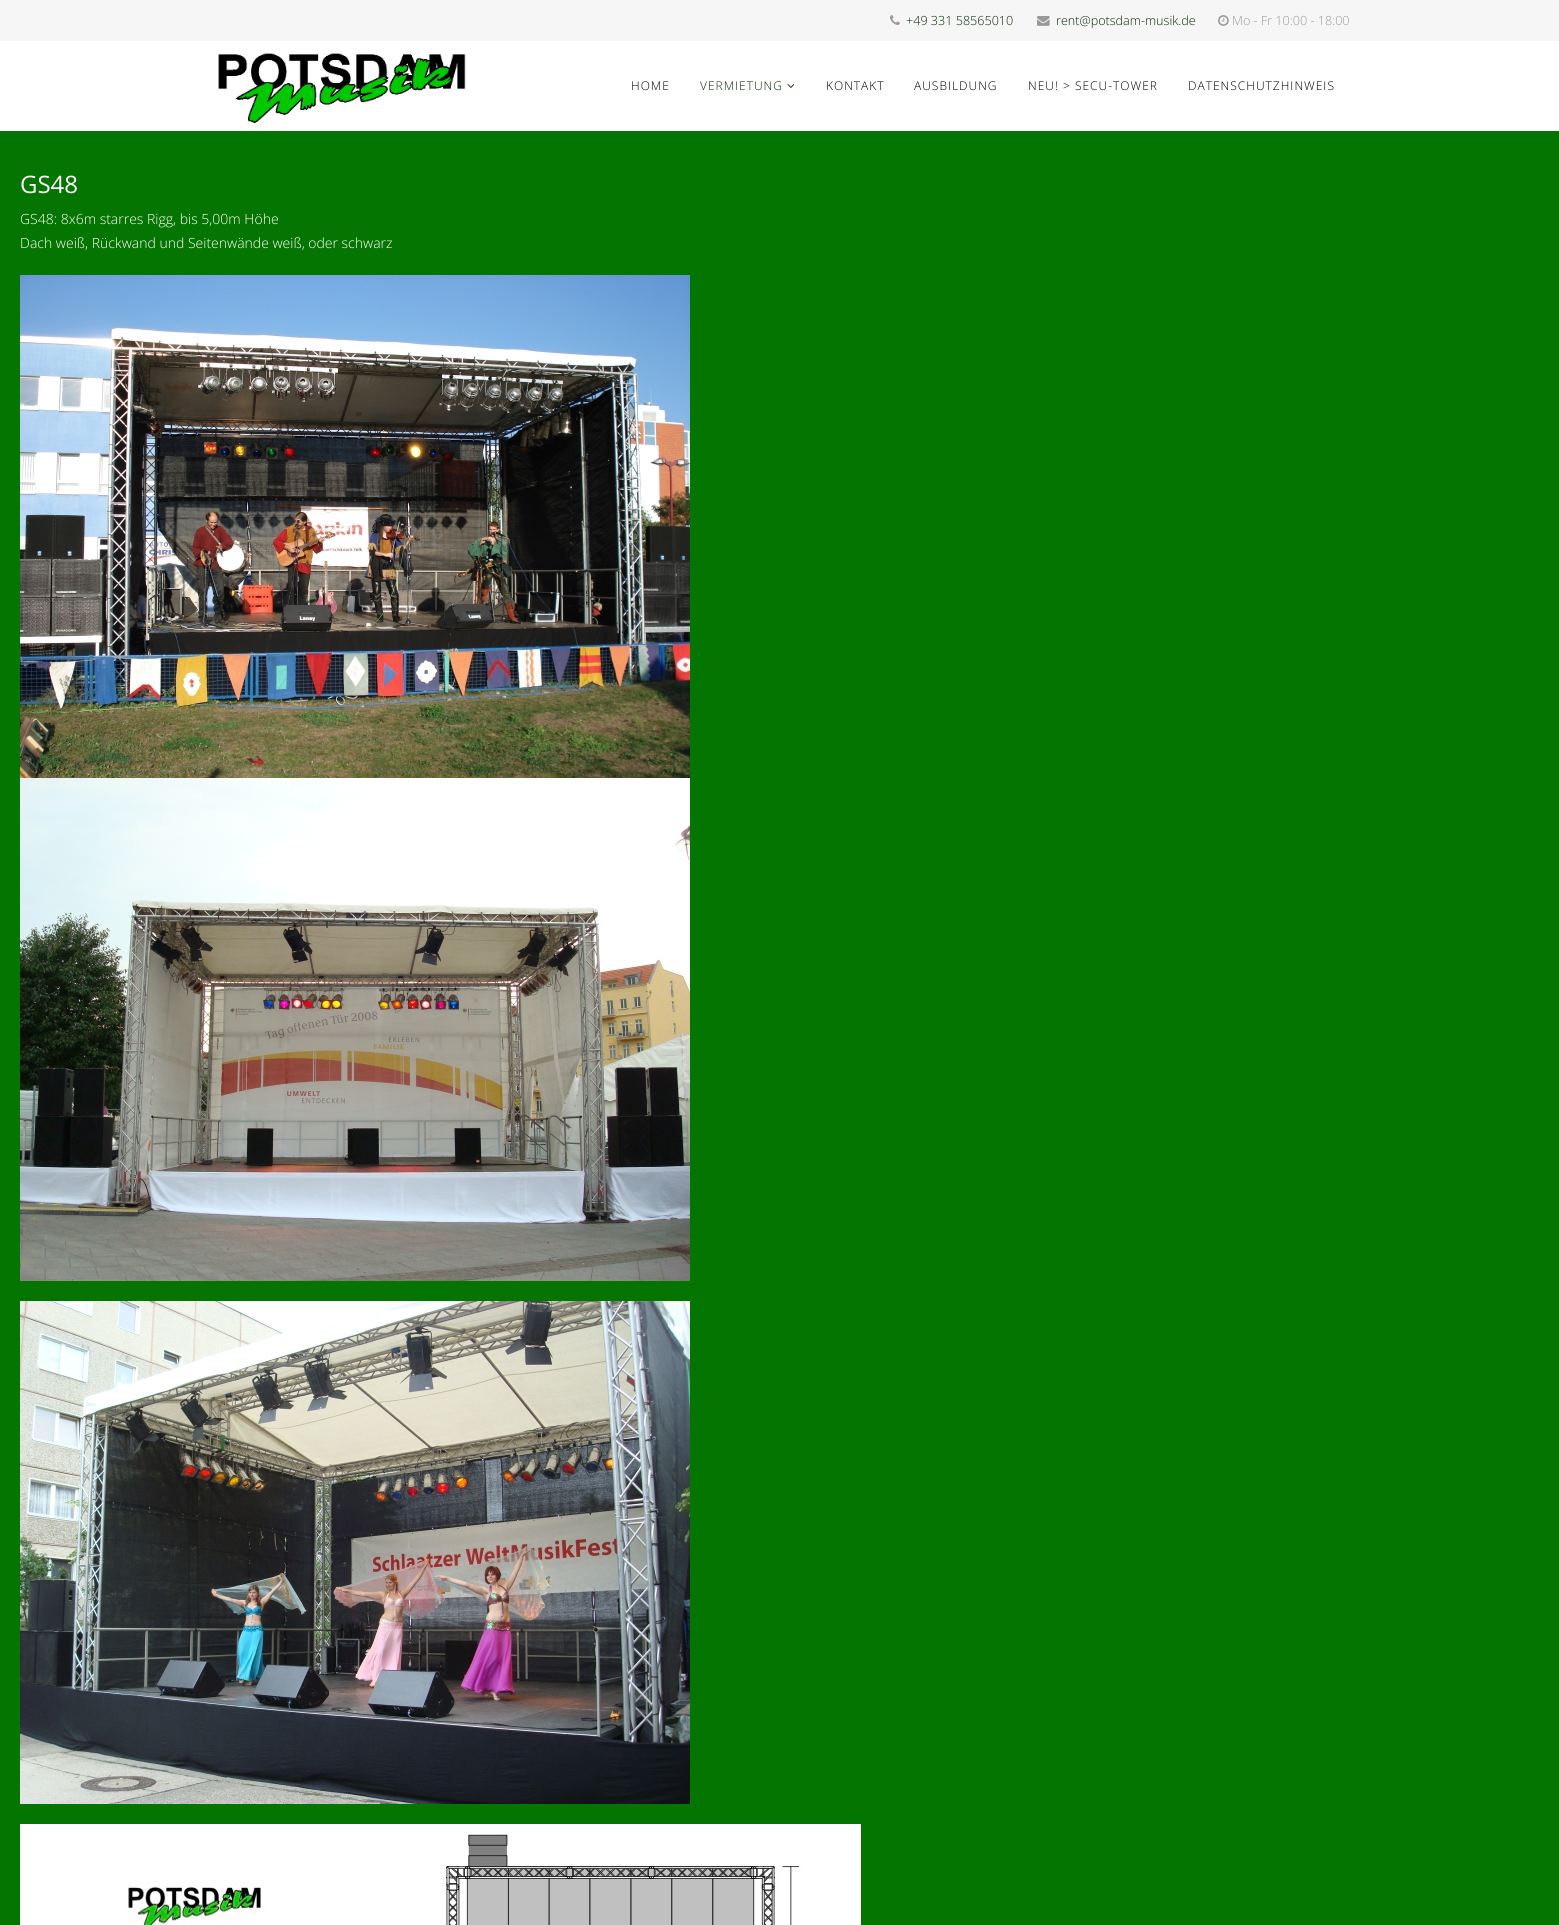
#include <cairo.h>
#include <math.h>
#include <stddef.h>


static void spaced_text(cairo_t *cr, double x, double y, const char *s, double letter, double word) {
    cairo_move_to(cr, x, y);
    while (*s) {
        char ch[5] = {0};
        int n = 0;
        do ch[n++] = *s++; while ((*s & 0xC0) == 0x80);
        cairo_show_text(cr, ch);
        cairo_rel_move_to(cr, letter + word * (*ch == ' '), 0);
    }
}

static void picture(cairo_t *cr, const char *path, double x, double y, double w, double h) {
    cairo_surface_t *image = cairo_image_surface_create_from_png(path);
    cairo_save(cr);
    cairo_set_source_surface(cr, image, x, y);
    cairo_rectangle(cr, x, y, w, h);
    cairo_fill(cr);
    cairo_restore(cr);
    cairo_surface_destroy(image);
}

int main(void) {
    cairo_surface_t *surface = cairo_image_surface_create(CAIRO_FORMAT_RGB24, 1559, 1925);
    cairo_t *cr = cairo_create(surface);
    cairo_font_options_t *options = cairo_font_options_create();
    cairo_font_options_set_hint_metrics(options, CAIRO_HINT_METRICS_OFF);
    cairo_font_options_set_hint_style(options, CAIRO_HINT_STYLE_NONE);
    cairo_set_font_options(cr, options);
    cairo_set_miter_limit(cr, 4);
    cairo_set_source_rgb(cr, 0.016, 0.459, 0);
    cairo_paint(cr);
    cairo_set_source_rgb(cr, 0.961, 0.961, 0.961);
    cairo_rectangle(cr, 0, 0, 1559, 41);
    cairo_fill(cr);
    picture(cr, "img1.png", 890, 15, 10, 10);
    cairo_select_font_face(cr, "Open Sans Light", CAIRO_FONT_SLANT_NORMAL, CAIRO_FONT_WEIGHT_NORMAL);
    cairo_set_font_size(cr, 12.6);
    cairo_set_source_rgb(cr, 0.012, 0.18, 0.008);
    cairo_move_to(cr, 906, 25);
    cairo_show_text(cr, "+49 331 58565010");
    picture(cr, "img2.png", 1037, 16, 13, 10);
    cairo_move_to(cr, 1056, 25);
    cairo_show_text(cr, "rent@potsdam-musik.de");
    picture(cr, "img3.png", 1218, 15, 11, 11);
    cairo_set_source_rgb(cr, 0.6, 0.6, 0.6);
    cairo_move_to(cr, 1232, 25);
    cairo_show_text(cr, "Mo - Fr 10:00 - 18:00");
    cairo_set_source_rgb(cr, 1, 1, 1);
    cairo_rectangle(cr, 0, 41, 1559, 90);
    cairo_fill(cr);
    picture(cr, "img4.png", 218, 53, 248, 70);
    cairo_set_font_size(cr, 12);
    cairo_set_source_rgb(cr, 0, 0, 0);
    spaced_text(cr, 631, 90, "HOME", 1, 0);
    cairo_set_source_rgb(cr, 0.012, 0.18, 0.008);
    spaced_text(cr, 700, 90, "VERMIETUNG", 1, 0);
    picture(cr, "img5.png", 787, 84, 8, 4);
    cairo_set_source_rgb(cr, 0, 0, 0);
    spaced_text(cr, 826, 90, "KONTAKT", 1, 0);
    spaced_text(cr, 914, 90, "AUSBILDUNG", 1, 0);
    spaced_text(cr, 1028, 90, "NEU! > SECU-TOWER", 1, 0);
    spaced_text(cr, 1188, 90, "DATENSCHUTZHINWEIS", 1, 0);
    cairo_select_font_face(cr, "Open Sans", CAIRO_FONT_SLANT_NORMAL, CAIRO_FONT_WEIGHT_NORMAL);
    cairo_set_font_size(cr, 24);
    cairo_set_source_rgb(cr, 1, 1, 1);
    cairo_move_to(cr, 20, 193);
    cairo_show_text(cr, "GS48");
    cairo_select_font_face(cr, "Open Sans Light", CAIRO_FONT_SLANT_NORMAL, CAIRO_FONT_WEIGHT_NORMAL);
    cairo_set_font_size(cr, 14);
    cairo_move_to(cr, 20, 224);
    cairo_show_text(cr, "GS48: 8x6m starres Rigg, bis 5,00m Höhe");
    cairo_move_to(cr, 20, 248);
    cairo_show_text(cr, "Dach weiß, Rückwand und Seitenwände weiß, oder schwarz");
    picture(cr, "img6.png", 20, 275, 670, 503);
    picture(cr, "img7.png", 20, 778, 670, 503);
    picture(cr, "img8.png", 20, 1301, 670, 503);
    picture(cr, "img9.png", 20, 1824, 841, 101);
    cairo_surface_write_to_png(surface, "page.png");
    cairo_font_options_destroy(options);
    cairo_destroy(cr);
    cairo_surface_destroy(surface);
    return 0;
}
